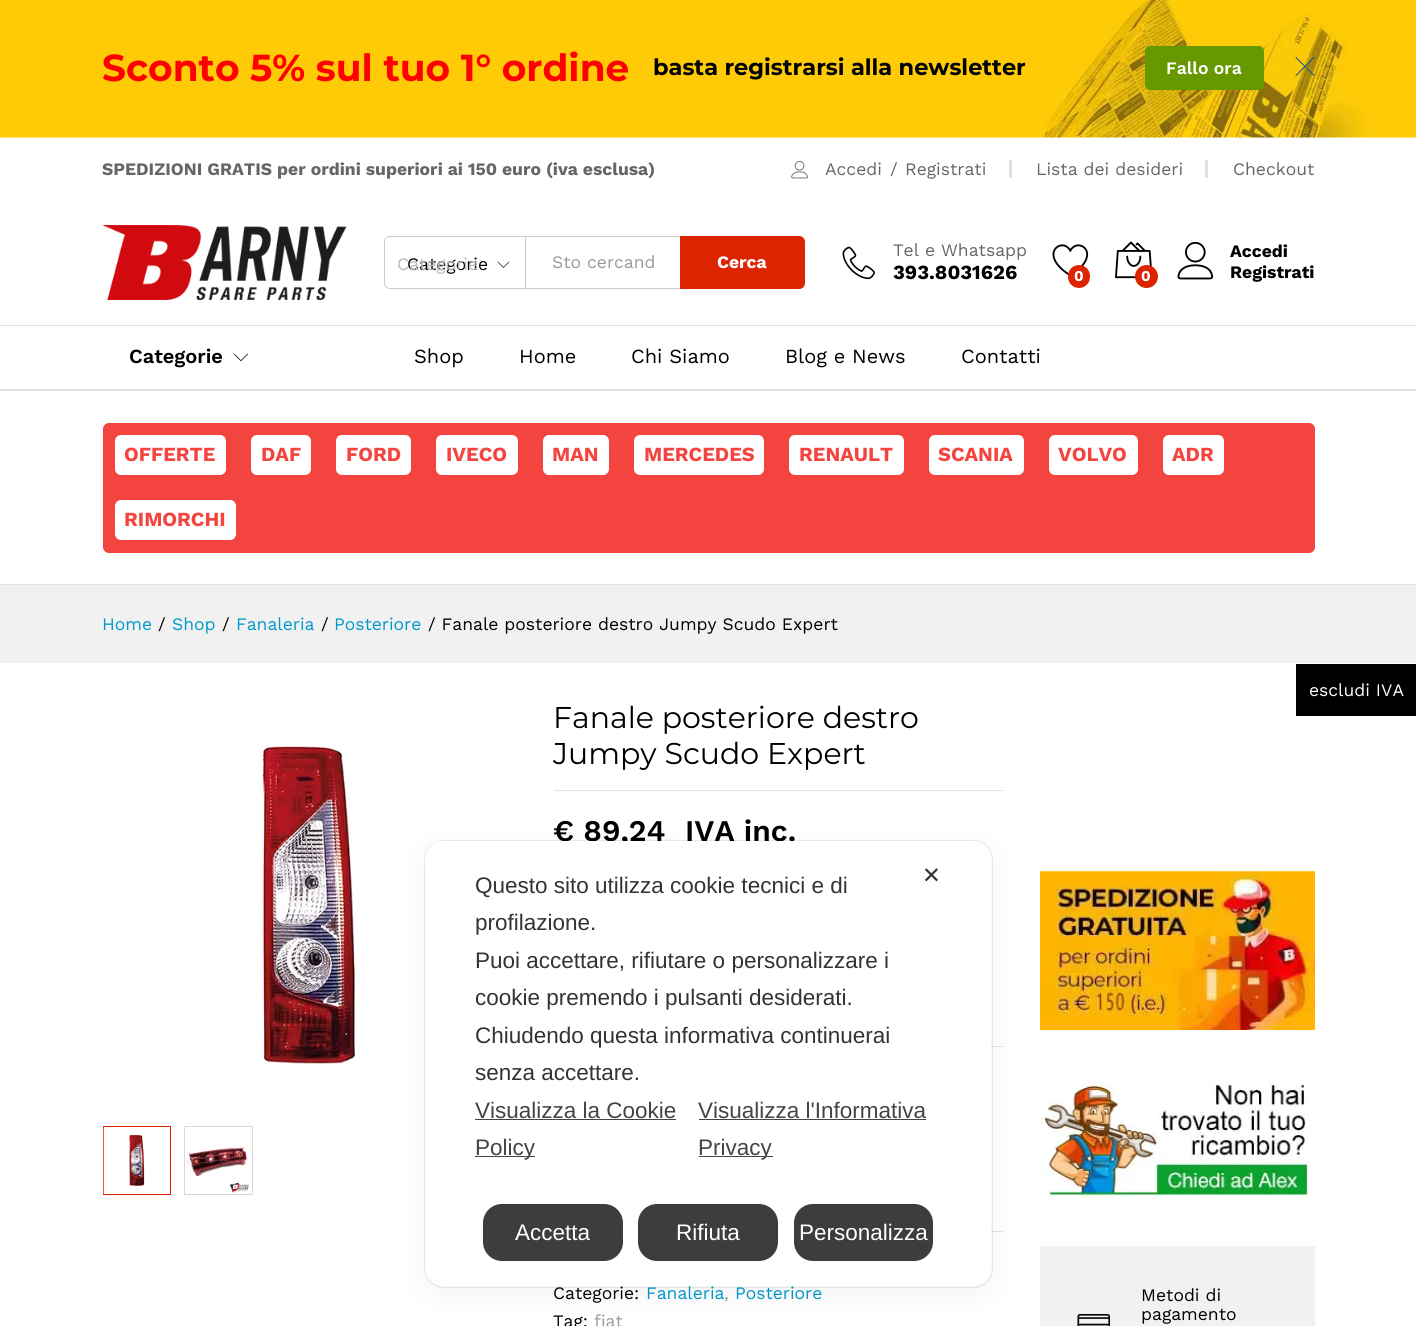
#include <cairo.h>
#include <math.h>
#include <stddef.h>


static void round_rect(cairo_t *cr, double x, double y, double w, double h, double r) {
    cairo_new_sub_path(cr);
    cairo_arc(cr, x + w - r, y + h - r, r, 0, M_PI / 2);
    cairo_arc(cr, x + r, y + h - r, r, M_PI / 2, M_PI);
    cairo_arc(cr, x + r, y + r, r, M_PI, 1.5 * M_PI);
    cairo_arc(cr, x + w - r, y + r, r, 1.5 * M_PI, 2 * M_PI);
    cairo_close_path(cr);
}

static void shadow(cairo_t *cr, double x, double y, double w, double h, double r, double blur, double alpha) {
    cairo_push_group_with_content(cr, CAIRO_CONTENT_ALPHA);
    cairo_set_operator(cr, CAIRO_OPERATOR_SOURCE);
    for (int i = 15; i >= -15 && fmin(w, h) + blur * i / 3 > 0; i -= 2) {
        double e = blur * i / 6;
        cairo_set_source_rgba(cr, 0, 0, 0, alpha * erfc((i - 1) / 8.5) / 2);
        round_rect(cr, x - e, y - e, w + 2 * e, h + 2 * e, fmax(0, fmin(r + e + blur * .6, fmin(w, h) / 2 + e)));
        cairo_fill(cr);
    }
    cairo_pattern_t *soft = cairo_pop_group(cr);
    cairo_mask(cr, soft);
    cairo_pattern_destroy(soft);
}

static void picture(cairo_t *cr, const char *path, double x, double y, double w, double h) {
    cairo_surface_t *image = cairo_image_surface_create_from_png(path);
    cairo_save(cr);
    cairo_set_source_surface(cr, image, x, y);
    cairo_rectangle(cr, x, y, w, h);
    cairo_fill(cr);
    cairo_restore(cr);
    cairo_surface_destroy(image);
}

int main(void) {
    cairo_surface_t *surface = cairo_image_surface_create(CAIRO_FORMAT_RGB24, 1416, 1326);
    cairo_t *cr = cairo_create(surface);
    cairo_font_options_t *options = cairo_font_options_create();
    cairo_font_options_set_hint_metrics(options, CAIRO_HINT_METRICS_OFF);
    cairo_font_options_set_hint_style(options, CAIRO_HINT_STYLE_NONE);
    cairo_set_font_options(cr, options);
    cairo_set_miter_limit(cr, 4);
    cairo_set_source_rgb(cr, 1, 1, 1);
    cairo_paint(cr);
    picture(cr, "img1.png", 0, 0, 1416, 138);
    cairo_select_font_face(cr, "Montserrat", CAIRO_FONT_SLANT_NORMAL, CAIRO_FONT_WEIGHT_BOLD);
    cairo_set_font_size(cr, 37.5);
    cairo_set_source_rgb(cr, 1, 0, 0);
    cairo_move_to(cr, 102, 81);
    cairo_show_text(cr, "Sconto 5% sul tuo 1° ordine");
    cairo_set_font_size(cr, 22.5);
    cairo_set_source_rgb(cr, 0, 0, 0);
    cairo_move_to(cr, 653, 75);
    cairo_show_text(cr, "basta registrarsi alla newsletter");
    cairo_set_source_rgb(cr, 0.4, 0.6, 0);
    round_rect(cr, 1145, 46, 119, 44, 5);
    cairo_fill(cr);
    cairo_select_font_face(cr, "Work Sans SemiBold", CAIRO_FONT_SLANT_NORMAL, CAIRO_FONT_WEIGHT_NORMAL);
    cairo_set_font_size(cr, 17.5);
    cairo_set_source_rgb(cr, 1, 1, 1);
    cairo_move_to(cr, 1166, 74);
    cairo_show_text(cr, "Fallo ora");
    picture(cr, "img2.png", 1295, 57, 20, 19);
    cairo_select_font_face(cr, "Work Sans", CAIRO_FONT_SLANT_NORMAL, CAIRO_FONT_WEIGHT_BOLD);
    cairo_set_source_rgb(cr, 0.4, 0.4, 0.4);
    cairo_move_to(cr, 102, 175);
    cairo_show_text(cr, "SPEDIZIONI GRATIS per ordini superiori ai 150 euro (iva esclusa)");
    picture(cr, "img3.png", 791, 160, 17, 19);
    cairo_select_font_face(cr, "Work Sans", CAIRO_FONT_SLANT_NORMAL, CAIRO_FONT_WEIGHT_NORMAL);
    cairo_move_to(cr, 825, 175);
    cairo_show_text(cr, "Accedi");
    cairo_move_to(cr, 890, 175);
    cairo_show_text(cr, "/");
    cairo_move_to(cr, 905, 175);
    cairo_show_text(cr, "Registrati");
    cairo_set_source_rgb(cr, 0.882, 0.882, 0.882);
    cairo_rectangle(cr, 1009, 160, 3, 18);
    cairo_fill(cr);
    cairo_set_source_rgb(cr, 0.4, 0.4, 0.4);
    cairo_move_to(cr, 1036, 175);
    cairo_show_text(cr, "Lista dei desideri");
    cairo_set_source_rgb(cr, 0.882, 0.882, 0.882);
    cairo_rectangle(cr, 1205, 160, 3, 18);
    cairo_fill(cr);
    cairo_set_source_rgb(cr, 0.4, 0.4, 0.4);
    cairo_move_to(cr, 1233, 175);
    cairo_show_text(cr, "Checkout");
    picture(cr, "img4.png", 102, 225, 245, 75);
    cairo_new_path(cr);
    cairo_move_to(cr, 390, 236.5);
    cairo_line_to(cr, 525.5, 236.5);
    cairo_line_to(cr, 525.5, 288.5);
    cairo_line_to(cr, 390, 288.5);
    cairo_curve_to(cr, 387, 288.5, 384.5, 286, 384.5, 283);
    cairo_line_to(cr, 384.5, 242);
    cairo_curve_to(cr, 384.5, 239, 387, 236.5, 390, 236.5);
    cairo_close_path(cr);
    cairo_set_source_rgb(cr, 0.8, 0.8, 0.8);
    cairo_set_line_width(cr, 1);
    cairo_stroke(cr);
    cairo_set_source_rgb(cr, 0, 0, 0);
    cairo_move_to(cr, 407, 270);
    cairo_show_text(cr, "Categorie");
    cairo_set_source_rgb(cr, 0.722, 0.722, 0.722);
    cairo_move_to(cr, 397, 270);
    cairo_show_text(cr, "Categorie");
    picture(cr, "img5.png", 497, 261, 13, 7);
    cairo_set_source_rgb(cr, 0.8, 0.8, 0.8);
    cairo_rectangle(cr, 526, 236, 154, 1);
    cairo_fill(cr);
    cairo_rectangle(cr, 526, 288, 154, 1);
    cairo_fill(cr);
    cairo_set_source_rgb(cr, 0.6, 0.6, 0.6);
    cairo_move_to(cr, 552, 268);
    cairo_show_text(cr, "Sto cercand");
    cairo_set_source_rgb(cr, 0.867, 0.141, 0);
    cairo_new_path(cr);
    cairo_move_to(cr, 680, 236);
    cairo_line_to(cr, 799, 236);
    cairo_curve_to(cr, 802.5, 236, 805, 238.5, 805, 242);
    cairo_line_to(cr, 805, 283);
    cairo_curve_to(cr, 805, 286.5, 802.5, 289, 799, 289);
    cairo_line_to(cr, 680, 289);
    cairo_close_path(cr);
    cairo_fill(cr);
    cairo_select_font_face(cr, "Work Sans", CAIRO_FONT_SLANT_NORMAL, CAIRO_FONT_WEIGHT_BOLD);
    cairo_set_source_rgb(cr, 1, 1, 1);
    cairo_move_to(cr, 717, 268);
    cairo_show_text(cr, "Cerca");
    picture(cr, "img6.png", 842, 246, 33, 34);
    cairo_select_font_face(cr, "Work Sans", CAIRO_FONT_SLANT_NORMAL, CAIRO_FONT_WEIGHT_NORMAL);
    cairo_set_source_rgb(cr, 0.4, 0.4, 0.4);
    cairo_move_to(cr, 893, 256);
    cairo_show_text(cr, "Tel e Whatsapp");
    cairo_select_font_face(cr, "Work Sans", CAIRO_FONT_SLANT_NORMAL, CAIRO_FONT_WEIGHT_BOLD);
    cairo_set_font_size(cr, 20);
    cairo_set_source_rgb(cr, 0, 0, 0);
    cairo_move_to(cr, 893, 279);
    cairo_show_text(cr, "393.8031626");
    picture(cr, "img7.png", 1052, 244, 37, 32);
    cairo_set_source_rgb(cr, 0.867, 0.141, 0);
    round_rect(cr, 1068, 265, 22, 23, 11);
    cairo_fill(cr);
    cairo_set_font_size(cr, 15);
    cairo_set_source_rgb(cr, 1, 1, 1);
    cairo_move_to(cr, 1074, 281);
    cairo_show_text(cr, "0");
    picture(cr, "img8.png", 1115, 241, 37, 38);
    cairo_set_source_rgb(cr, 0.867, 0.141, 0);
    cairo_arc(cr, 1146.5, 276.5, 11.5, 0, 2 * M_PI);
    cairo_fill(cr);
    cairo_set_source_rgb(cr, 1, 1, 1);
    cairo_move_to(cr, 1141, 281);
    cairo_show_text(cr, "0");
    picture(cr, "img9.png", 1177, 241, 37, 39);
    cairo_set_font_size(cr, 17.5);
    cairo_set_source_rgb(cr, 0, 0, 0);
    cairo_move_to(cr, 1230, 257);
    cairo_show_text(cr, "Accedi");
    cairo_move_to(cr, 1230, 278);
    cairo_show_text(cr, "Registrati");
    cairo_set_source_rgb(cr, 0.882, 0.882, 0.882);
    cairo_rectangle(cr, 0, 325, 1416, 1);
    cairo_fill(cr);
    cairo_rectangle(cr, 0, 389, 1416, 2);
    cairo_fill(cr);
    cairo_select_font_face(cr, "Work Sans SemiBold", CAIRO_FONT_SLANT_NORMAL, CAIRO_FONT_WEIGHT_NORMAL);
    cairo_set_font_size(cr, 20);
    cairo_set_source_rgb(cr, 0, 0, 0);
    cairo_move_to(cr, 129, 363);
    cairo_show_text(cr, "Categorie");
    picture(cr, "img10.png", 233, 353, 15, 9);
    cairo_select_font_face(cr, "Work Sans", CAIRO_FONT_SLANT_NORMAL, CAIRO_FONT_WEIGHT_NORMAL);
    cairo_move_to(cr, 414, 363);
    cairo_show_text(cr, "Shop");
    cairo_move_to(cr, 519, 363);
    cairo_show_text(cr, "Home");
    cairo_move_to(cr, 631, 363);
    cairo_show_text(cr, "Chi Siamo");
    cairo_move_to(cr, 785, 363);
    cairo_show_text(cr, "Blog e News");
    cairo_move_to(cr, 961, 363);
    cairo_show_text(cr, "Contatti");
    cairo_set_source_rgb(cr, 0.882, 0.882, 0.882);
    cairo_rectangle(cr, 0, 584, 1416, 1);
    cairo_fill(cr);
    cairo_set_source_rgb(cr, 0.953, 0.267, 0.247);
    round_rect(cr, 103, 423, 1212, 130, 6);
    cairo_fill(cr);
    cairo_set_source_rgb(cr, 1, 1, 1);
    round_rect(cr, 115, 435, 111, 40, 6);
    cairo_fill(cr);
    cairo_select_font_face(cr, "Work Sans", CAIRO_FONT_SLANT_NORMAL, CAIRO_FONT_WEIGHT_BOLD);
    cairo_set_source_rgb(cr, 0.953, 0.267, 0.247);
    cairo_move_to(cr, 124, 461);
    cairo_show_text(cr, "OFFERTE");
    cairo_set_source_rgb(cr, 1, 1, 1);
    round_rect(cr, 251, 435, 60, 40, 6);
    cairo_fill(cr);
    cairo_set_source_rgb(cr, 0.953, 0.267, 0.247);
    cairo_move_to(cr, 261, 461);
    cairo_show_text(cr, "DAF");
    cairo_set_source_rgb(cr, 1, 1, 1);
    round_rect(cr, 336, 435, 75, 40, 6);
    cairo_fill(cr);
    cairo_set_source_rgb(cr, 0.953, 0.267, 0.247);
    cairo_move_to(cr, 346, 461);
    cairo_show_text(cr, "FORD");
    cairo_set_source_rgb(cr, 1, 1, 1);
    round_rect(cr, 436, 435, 82, 40, 6);
    cairo_fill(cr);
    cairo_set_source_rgb(cr, 0.953, 0.267, 0.247);
    cairo_move_to(cr, 446, 461);
    cairo_show_text(cr, "IVECO");
    cairo_set_source_rgb(cr, 1, 1, 1);
    round_rect(cr, 543, 435, 66, 40, 6);
    cairo_fill(cr);
    cairo_set_source_rgb(cr, 0.953, 0.267, 0.247);
    cairo_move_to(cr, 552, 461);
    cairo_show_text(cr, "MAN");
    cairo_set_source_rgb(cr, 1, 1, 1);
    round_rect(cr, 634, 435, 130, 40, 6);
    cairo_fill(cr);
    cairo_set_source_rgb(cr, 0.953, 0.267, 0.247);
    cairo_move_to(cr, 644, 461);
    cairo_show_text(cr, "MERCEDES");
    cairo_set_source_rgb(cr, 1, 1, 1);
    round_rect(cr, 789, 435, 115, 40, 6);
    cairo_fill(cr);
    cairo_set_source_rgb(cr, 0.953, 0.267, 0.247);
    cairo_move_to(cr, 799, 461);
    cairo_show_text(cr, "RENAULT");
    cairo_set_source_rgb(cr, 1, 1, 1);
    round_rect(cr, 929, 435, 95, 40, 6);
    cairo_fill(cr);
    cairo_set_source_rgb(cr, 0.953, 0.267, 0.247);
    cairo_move_to(cr, 938, 461);
    cairo_show_text(cr, "SCANIA");
    cairo_set_source_rgb(cr, 1, 1, 1);
    round_rect(cr, 1049, 435, 89, 40, 6);
    cairo_fill(cr);
    cairo_set_source_rgb(cr, 0.953, 0.267, 0.247);
    cairo_move_to(cr, 1058, 461);
    cairo_show_text(cr, "VOLVO");
    cairo_set_source_rgb(cr, 1, 1, 1);
    round_rect(cr, 1163, 435, 61, 40, 6);
    cairo_fill(cr);
    cairo_set_source_rgb(cr, 0.953, 0.267, 0.247);
    cairo_move_to(cr, 1172, 461);
    cairo_show_text(cr, "ADR");
    cairo_set_source_rgb(cr, 1, 1, 1);
    round_rect(cr, 115, 500, 121, 40, 6);
    cairo_fill(cr);
    cairo_set_source_rgb(cr, 0.953, 0.267, 0.247);
    cairo_move_to(cr, 124, 526);
    cairo_show_text(cr, "RIMORCHI");
    cairo_set_source_rgb(cr, 0.945, 0.945, 0.945);
    cairo_rectangle(cr, 0, 585, 1416, 78);
    cairo_fill(cr);
    cairo_select_font_face(cr, "Work Sans", CAIRO_FONT_SLANT_NORMAL, CAIRO_FONT_WEIGHT_NORMAL);
    cairo_set_font_size(cr, 17.5);
    cairo_set_source_rgb(cr, 0, 0.6, 0.8);
    cairo_move_to(cr, 102, 630);
    cairo_show_text(cr, "Home");
    cairo_set_source_rgb(cr, 0, 0, 0);
    cairo_move_to(cr, 158, 630);
    cairo_show_text(cr, "/");
    cairo_set_source_rgb(cr, 0, 0.6, 0.8);
    cairo_move_to(cr, 172, 630);
    cairo_show_text(cr, "Shop");
    cairo_set_source_rgb(cr, 0, 0, 0);
    cairo_move_to(cr, 222, 630);
    cairo_show_text(cr, "/");
    cairo_set_source_rgb(cr, 0, 0.6, 0.8);
    cairo_move_to(cr, 236, 630);
    cairo_show_text(cr, "Fanaleria");
    cairo_set_source_rgb(cr, 0, 0, 0);
    cairo_move_to(cr, 321, 630);
    cairo_show_text(cr, "/");
    cairo_set_source_rgb(cr, 0, 0.6, 0.8);
    cairo_move_to(cr, 334, 630);
    cairo_show_text(cr, "Posteriore");
    cairo_set_source_rgb(cr, 0, 0, 0);
    cairo_move_to(cr, 428, 630);
    cairo_show_text(cr, "/ Fanale posteriore destro Jumpy Scudo Expert");
    picture(cr, "img11.png", 261, 746, 100, 319);
    cairo_rectangle(cr, 103.5, 1126.5, 67, 68);
    cairo_set_source_rgb(cr, 0.867, 0.141, 0);
    cairo_stroke(cr);
    picture(cr, "img12.png", 103, 1127, 42, 67);
    cairo_rectangle(cr, 184.5, 1126.5, 68, 68);
    cairo_set_source_rgb(cr, 0.851, 0.851, 0.851);
    cairo_stroke(cr);
    picture(cr, "img13.png", 186, 1146, 63, 47);
    cairo_set_source_rgb(cr, 0.882, 0.882, 0.882);
    cairo_rectangle(cr, 554, 790, 449, 1);
    cairo_fill(cr);
    cairo_select_font_face(cr, "Montserrat", CAIRO_FONT_SLANT_NORMAL, CAIRO_FONT_WEIGHT_NORMAL);
    cairo_set_font_size(cr, 30);
    cairo_set_source_rgb(cr, 0, 0, 0);
    cairo_move_to(cr, 553, 728);
    cairo_show_text(cr, "Fanale posteriore destro");
    cairo_move_to(cr, 553, 764);
    cairo_show_text(cr, "Jumpy Scudo Expert");
    cairo_select_font_face(cr, "Work Sans SemiBold", CAIRO_FONT_SLANT_NORMAL, CAIRO_FONT_WEIGHT_NORMAL);
    cairo_move_to(cr, 553, 841);
    cairo_show_text(cr, "€ 89,24");
    cairo_move_to(cr, 685, 841);
    cairo_show_text(cr, "IVA inc.");
    cairo_set_source_rgb(cr, 0.882, 0.882, 0.882);
    cairo_rectangle(cr, 991, 1046, 12, 1);
    cairo_fill(cr);
    cairo_rectangle(cr, 991, 1231, 12, 1);
    cairo_fill(cr);
    cairo_select_font_face(cr, "Work Sans", CAIRO_FONT_SLANT_NORMAL, CAIRO_FONT_WEIGHT_NORMAL);
    cairo_set_font_size(cr, 17.5);
    cairo_set_source_rgb(cr, 0, 0, 0);
    cairo_move_to(cr, 553, 1299);
    cairo_show_text(cr, "Categorie:");
    cairo_set_source_rgb(cr, 0, 0.6, 0.8);
    cairo_move_to(cr, 646, 1299);
    cairo_show_text(cr, "Fanaleria");
    cairo_set_source_rgb(cr, 0.6, 0.6, 0.6);
    cairo_move_to(cr, 724, 1299);
    cairo_show_text(cr, ",");
    cairo_set_source_rgb(cr, 0, 0.6, 0.8);
    cairo_move_to(cr, 735, 1299);
    cairo_show_text(cr, "Posteriore");
    cairo_set_source_rgb(cr, 0, 0, 0);
    cairo_move_to(cr, 553, 1327);
    cairo_show_text(cr, "Tag:");
    cairo_set_source_rgb(cr, 0.6, 0.6, 0.6);
    cairo_move_to(cr, 594, 1327);
    cairo_show_text(cr, "fiat");
    picture(cr, "img14.png", 1040, 871, 275, 159);
    picture(cr, "img15.png", 1040, 1083, 269, 116);
    cairo_set_source_rgb(cr, 0.945, 0.945, 0.945);
    cairo_rectangle(cr, 1040, 1246, 275, 80);
    cairo_fill(cr);
    cairo_set_source_rgb(cr, 0, 0, 0);
    cairo_move_to(cr, 1141, 1301);
    cairo_show_text(cr, "Metodi di");
    picture(cr, "img16.png", 1077, 1314, 33, 12);
    cairo_move_to(cr, 1141, 1320);
    cairo_show_text(cr, "pagamento");
    cairo_rectangle(cr, 1296, 664, 120, 52);
    cairo_fill(cr);
    cairo_set_source_rgb(cr, 1, 1, 1);
    cairo_move_to(cr, 1309, 696);
    cairo_show_text(cr, "escludi IVA");
    round_rect(cr, 424.5, 840.5, 568, 447, 19.5);
    cairo_set_source_rgba(cr, 0, 0, 0, 0.08);
    cairo_stroke(cr);
    cairo_set_source_rgb(cr, 0, 0, 0);
    shadow(cr, 425, 849, 566, 445, 19, 15, 0.05);
    cairo_set_source_rgb(cr, 1, 1, 1);
    round_rect(cr, 425, 841, 566, 445, 19);
    cairo_fill(cr);
    cairo_select_font_face(cr, "Liberation Sans", CAIRO_FONT_SLANT_NORMAL, CAIRO_FONT_WEIGHT_NORMAL);
    cairo_set_font_size(cr, 22.5);
    cairo_set_source_rgb(cr, 0.2, 0.2, 0.2);
    cairo_move_to(cr, 475, 893);
    cairo_show_text(cr, "Questo sito utilizza cookie tecnici e di");
    cairo_move_to(cr, 475, 930);
    cairo_show_text(cr, "profilazione.");
    cairo_move_to(cr, 475, 968);
    cairo_show_text(cr, "Puoi accettare, rifiutare o personalizzare i");
    cairo_move_to(cr, 475, 1005);
    cairo_show_text(cr, "cookie premendo i pulsanti desiderati.");
    cairo_move_to(cr, 475, 1043);
    cairo_show_text(cr, "Chiudendo questa informativa continuerai");
    cairo_move_to(cr, 475, 1080);
    cairo_show_text(cr, "senza accettare.");
    cairo_set_source_rgb(cr, 0.267, 0.267, 0.267);
    cairo_move_to(cr, 475, 1118);
    cairo_show_text(cr, "Visualizza la Cookie");
    cairo_rectangle(cr, 475, 1119, 201, 1);
    cairo_fill(cr);
    cairo_rectangle(cr, 475, 1156, 60, 1);
    cairo_fill(cr);
    cairo_move_to(cr, 475, 1155);
    cairo_show_text(cr, "Policy");
    cairo_move_to(cr, 698, 1118);
    cairo_show_text(cr, "Visualizza l'Informativa");
    cairo_rectangle(cr, 699, 1119, 227, 1);
    cairo_fill(cr);
    cairo_rectangle(cr, 699, 1156, 74, 1);
    cairo_fill(cr);
    cairo_move_to(cr, 698, 1155);
    cairo_show_text(cr, "Privacy");
    cairo_set_source_rgb(cr, 0.239, 0.239, 0.239);
    round_rect(cr, 483, 1204, 140, 57, 19);
    cairo_fill(cr);
    cairo_set_source_rgb(cr, 1, 1, 1);
    cairo_move_to(cr, 515, 1240);
    cairo_show_text(cr, "Accetta");
    cairo_set_source_rgb(cr, 0.239, 0.239, 0.239);
    round_rect(cr, 638, 1204, 140, 57, 19);
    cairo_fill(cr);
    cairo_set_source_rgb(cr, 1, 1, 1);
    cairo_move_to(cr, 676, 1240);
    cairo_show_text(cr, "Rifiuta");
    cairo_set_source_rgb(cr, 0.239, 0.239, 0.239);
    round_rect(cr, 794, 1204, 139, 57, 19);
    cairo_fill(cr);
    cairo_set_source_rgb(cr, 1, 1, 1);
    cairo_move_to(cr, 799, 1240);
    cairo_show_text(cr, "Personalizza");
    cairo_select_font_face(cr, "DejaVu Sans", CAIRO_FONT_SLANT_NORMAL, CAIRO_FONT_WEIGHT_NORMAL);
    cairo_set_source_rgb(cr, 0.2, 0.2, 0.2);
    cairo_move_to(cr, 922, 883);
    cairo_show_text(cr, "✕");
    cairo_surface_write_to_png(surface, "page.png");
    cairo_font_options_destroy(options);
    cairo_destroy(cr);
    cairo_surface_destroy(surface);
    return 0;
}
